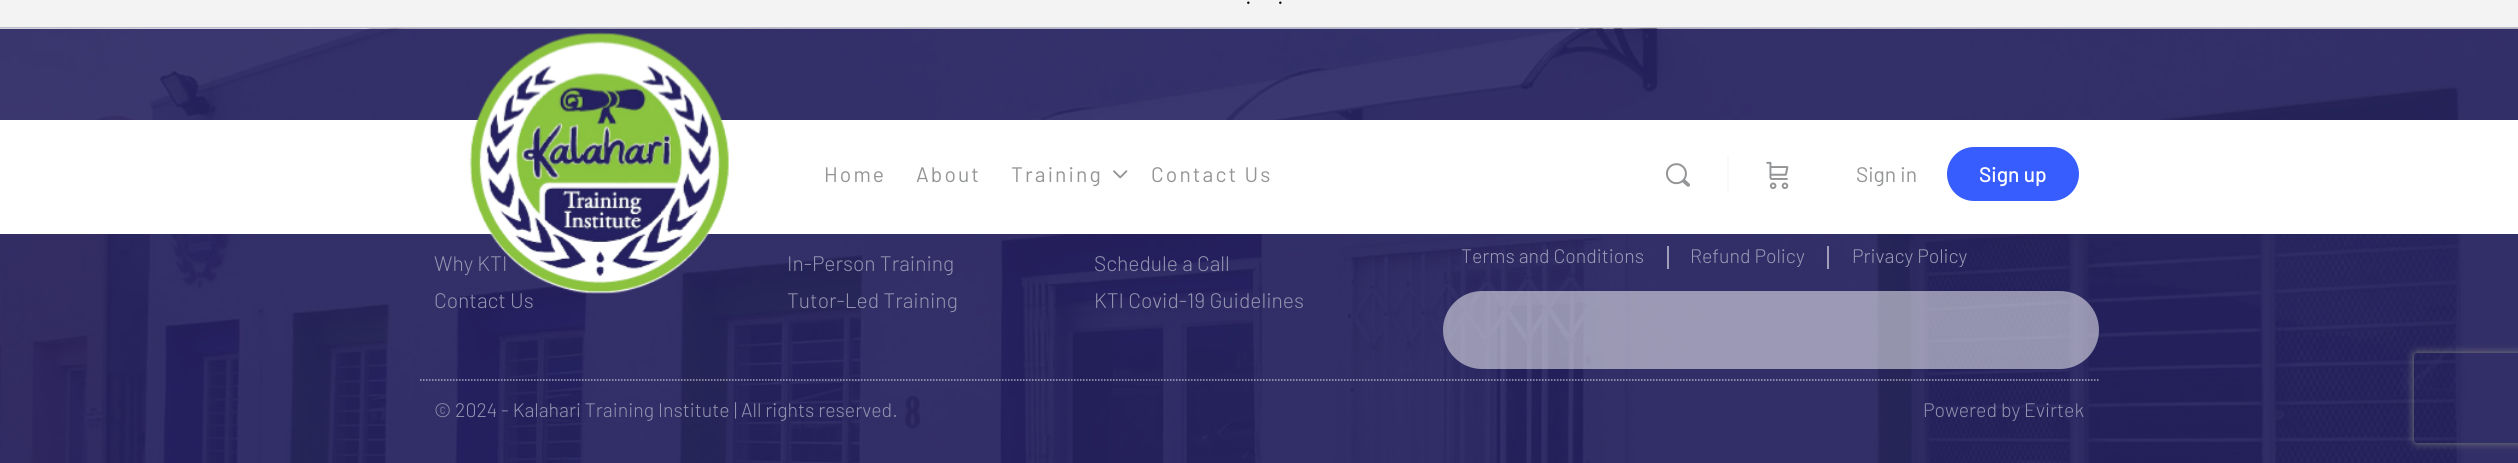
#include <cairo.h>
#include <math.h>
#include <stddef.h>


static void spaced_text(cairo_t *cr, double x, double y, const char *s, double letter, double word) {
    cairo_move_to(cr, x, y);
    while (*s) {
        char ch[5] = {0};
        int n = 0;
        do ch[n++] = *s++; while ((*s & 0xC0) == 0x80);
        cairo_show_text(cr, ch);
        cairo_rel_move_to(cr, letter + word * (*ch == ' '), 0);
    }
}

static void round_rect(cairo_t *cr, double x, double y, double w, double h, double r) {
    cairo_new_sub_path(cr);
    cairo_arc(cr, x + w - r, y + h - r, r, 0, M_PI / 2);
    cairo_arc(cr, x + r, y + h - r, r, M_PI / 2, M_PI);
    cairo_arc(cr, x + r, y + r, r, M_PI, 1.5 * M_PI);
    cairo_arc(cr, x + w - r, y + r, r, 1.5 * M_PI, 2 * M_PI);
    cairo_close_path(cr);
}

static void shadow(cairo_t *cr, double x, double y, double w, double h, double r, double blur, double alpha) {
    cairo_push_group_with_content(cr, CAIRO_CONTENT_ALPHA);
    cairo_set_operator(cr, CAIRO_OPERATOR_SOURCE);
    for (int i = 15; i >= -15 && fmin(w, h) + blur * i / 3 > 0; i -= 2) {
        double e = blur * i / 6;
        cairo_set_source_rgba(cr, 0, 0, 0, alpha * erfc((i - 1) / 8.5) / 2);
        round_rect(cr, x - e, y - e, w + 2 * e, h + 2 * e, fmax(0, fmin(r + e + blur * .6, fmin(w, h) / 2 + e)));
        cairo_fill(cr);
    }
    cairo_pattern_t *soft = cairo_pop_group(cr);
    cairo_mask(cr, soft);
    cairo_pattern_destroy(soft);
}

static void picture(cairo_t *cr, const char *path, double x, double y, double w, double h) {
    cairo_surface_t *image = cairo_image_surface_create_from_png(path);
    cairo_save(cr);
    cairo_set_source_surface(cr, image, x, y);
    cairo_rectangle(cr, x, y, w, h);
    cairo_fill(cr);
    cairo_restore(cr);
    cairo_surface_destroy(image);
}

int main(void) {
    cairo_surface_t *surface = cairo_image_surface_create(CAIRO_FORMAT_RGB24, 2518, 463);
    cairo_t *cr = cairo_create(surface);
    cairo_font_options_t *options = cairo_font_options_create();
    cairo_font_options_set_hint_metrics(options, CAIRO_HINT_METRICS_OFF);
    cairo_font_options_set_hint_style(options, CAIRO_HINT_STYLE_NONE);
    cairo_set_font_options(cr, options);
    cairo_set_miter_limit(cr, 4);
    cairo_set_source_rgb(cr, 0.953, 0.953, 0.953);
    cairo_paint(cr);
    cairo_set_source_rgb(cr, 0.745, 0.741, 0.804);
    cairo_rectangle(cr, 0, 27, 2518, 2);
    cairo_fill(cr);
    cairo_select_font_face(cr, "Barlow Light", CAIRO_FONT_SLANT_NORMAL, CAIRO_FONT_WEIGHT_NORMAL);
    cairo_set_font_size(cr, 24);
    cairo_set_source_rgb(cr, 0, 0, 0);
    cairo_move_to(cr, 1245, 4);
    cairo_show_text(cr, ".");
    cairo_move_to(cr, 1277, 4);
    cairo_show_text(cr, ".");
    picture(cr, "img1.png", 0, 28, 2518, 435);
    cairo_set_font_size(cr, 21);
    cairo_set_source_rgb(cr, 0.584, 0.576, 0.69);
    cairo_move_to(cr, 434, 271);
    cairo_show_text(cr, "Why KTI");
    cairo_move_to(cr, 434, 308);
    cairo_show_text(cr, "Contact Us");
    cairo_move_to(cr, 787, 271);
    cairo_show_text(cr, "In-Person Training");
    cairo_move_to(cr, 787, 308);
    cairo_show_text(cr, "Tutor-Led Training");
    cairo_move_to(cr, 1094, 271);
    cairo_show_text(cr, "Schedule a Call");
    cairo_move_to(cr, 1094, 308);
    cairo_show_text(cr, "KTI Covid-19 Guidelines");
    cairo_set_font_size(cr, 19.5);
    cairo_set_source_rgb(cr, 0.616, 0.608, 0.714);
    cairo_move_to(cr, 1461, 263);
    cairo_show_text(cr, "Terms and Conditions");
    cairo_set_source_rgb(cr, 0.624, 0.616, 0.722);
    cairo_rectangle(cr, 1667, 246, 2, 23);
    cairo_fill(cr);
    cairo_set_source_rgb(cr, 0.616, 0.608, 0.714);
    cairo_move_to(cr, 1690, 263);
    cairo_show_text(cr, "Refund Policy");
    cairo_set_source_rgb(cr, 0.624, 0.616, 0.722);
    cairo_rectangle(cr, 1827, 246, 2, 23);
    cairo_fill(cr);
    cairo_set_source_rgb(cr, 0.616, 0.608, 0.714);
    cairo_move_to(cr, 1852, 263);
    cairo_show_text(cr, "Privacy Policy");
    cairo_set_source_rgba(cr, 1, 1, 1, 0.51);
    round_rect(cr, 1443, 291, 656, 78, 39);
    cairo_fill(cr);
    cairo_new_path(cr);
    cairo_move_to(cr, 420, 380);
    cairo_line_to(cr, 2100, 380);
    cairo_set_source_rgba(cr, 1, 1, 1, 0.59);
    cairo_set_line_width(cr, 1.5);
    cairo_set_dash(cr, (double[]){1.5, 1.5}, 2, 0);
    cairo_stroke(cr);
    cairo_set_source_rgb(cr, 0.584, 0.576, 0.69);
    cairo_move_to(cr, 434, 417);
    cairo_show_text(cr, "© 2024 - Kalahari Training Institute");
    cairo_move_to(cr, 734, 417);
    cairo_show_text(cr, "|");
    cairo_move_to(cr, 741, 417);
    cairo_show_text(cr, "All rights reserved.");
    cairo_move_to(cr, 1923, 417);
    cairo_show_text(cr, "Powered by Evirtek");
    cairo_set_source_rgb(cr, 1, 1, 1);
    cairo_rectangle(cr, 0, 120, 2518, 114);
    cairo_fill(cr);
    picture(cr, "img2.png", 469, 32, 260, 262);
    cairo_select_font_face(cr, "Barlow", CAIRO_FONT_SLANT_NORMAL, CAIRO_FONT_WEIGHT_NORMAL);
    cairo_set_font_size(cr, 21);
    cairo_set_source_rgb(cr, 0.576, 0.584, 0.592);
    spaced_text(cr, 824, 182, "Home", 2.1, 0);
    spaced_text(cr, 916, 182, "About", 2.1, 0);
    spaced_text(cr, 1011, 182, "Training", 2.1, 0);
    picture(cr, "img3.png", 1113, 170, 15, 9);
    spaced_text(cr, 1151, 182, "Contact Us", 2.1, 0);
    picture(cr, "img4.png", 1665, 163, 25, 24);
    cairo_set_source_rgb(cr, 0.98, 0.98, 0.98);
    cairo_rectangle(cr, 1727, 156, 2, 36);
    cairo_fill(cr);
    picture(cr, "img5.png", 1766, 161, 23, 28);
    cairo_set_source_rgb(cr, 0.576, 0.584, 0.592);
    cairo_move_to(cr, 1856, 182);
    cairo_show_text(cr, "Sign in");
    cairo_set_source_rgb(cr, 0.22, 0.365, 1);
    round_rect(cr, 1948, 148, 130, 52, 26);
    cairo_fill_preserve(cr);
    cairo_set_line_width(cr, 2);
    cairo_set_dash(cr, NULL, 0, 0);
    cairo_stroke(cr);
    cairo_select_font_face(cr, "Barlow Medium", CAIRO_FONT_SLANT_NORMAL, CAIRO_FONT_WEIGHT_NORMAL);
    cairo_set_source_rgb(cr, 1, 1, 1);
    cairo_move_to(cr, 1979, 182);
    cairo_show_text(cr, "Sign up");
    cairo_save(cr);
    cairo_set_fill_rule(cr, CAIRO_FILL_RULE_EVEN_ODD);
    cairo_new_path(cr);
    cairo_move_to(cr, 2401, 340);
    cairo_line_to(cr, 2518, 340);
    cairo_line_to(cr, 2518, 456);
    cairo_line_to(cr, 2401, 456);
    cairo_close_path(cr);
    cairo_move_to(cr, 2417, 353);
    cairo_line_to(cr, 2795, 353);
    cairo_curve_to(cr, 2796.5, 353, 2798, 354.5, 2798, 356);
    cairo_line_to(cr, 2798, 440);
    cairo_curve_to(cr, 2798, 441.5, 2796.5, 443, 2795, 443);
    cairo_line_to(cr, 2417, 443);
    cairo_curve_to(cr, 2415.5, 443, 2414, 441.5, 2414, 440);
    cairo_line_to(cr, 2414, 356);
    cairo_curve_to(cr, 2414, 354.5, 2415.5, 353, 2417, 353);
    cairo_close_path(cr);
    cairo_clip(cr);
    cairo_set_source_rgb(cr, 0.502, 0.502, 0.502);
    shadow(cr, 2414, 353, 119, 90, 3, 4, 1);
    cairo_restore(cr);
    cairo_surface_write_to_png(surface, "page.png");
    cairo_font_options_destroy(options);
    cairo_destroy(cr);
    cairo_surface_destroy(surface);
    return 0;
}
